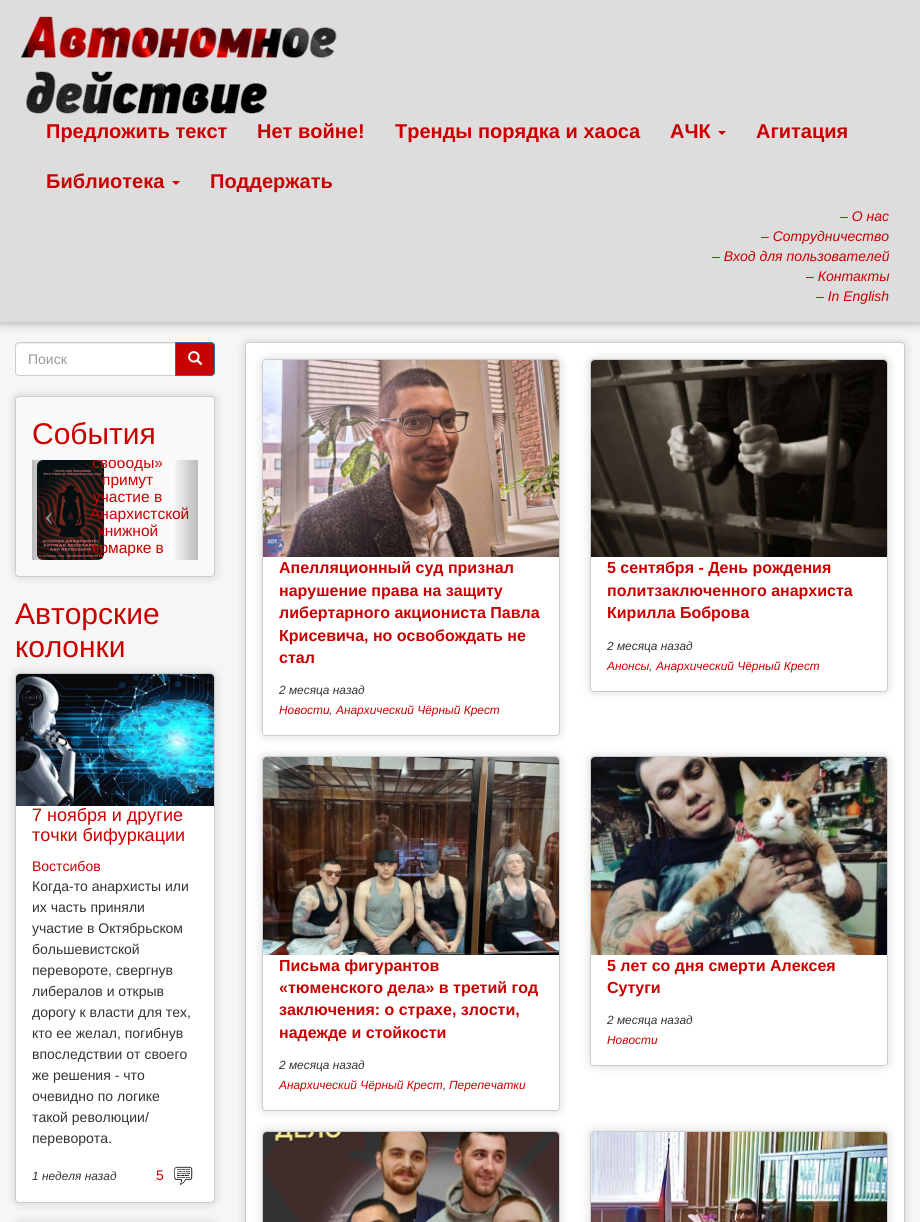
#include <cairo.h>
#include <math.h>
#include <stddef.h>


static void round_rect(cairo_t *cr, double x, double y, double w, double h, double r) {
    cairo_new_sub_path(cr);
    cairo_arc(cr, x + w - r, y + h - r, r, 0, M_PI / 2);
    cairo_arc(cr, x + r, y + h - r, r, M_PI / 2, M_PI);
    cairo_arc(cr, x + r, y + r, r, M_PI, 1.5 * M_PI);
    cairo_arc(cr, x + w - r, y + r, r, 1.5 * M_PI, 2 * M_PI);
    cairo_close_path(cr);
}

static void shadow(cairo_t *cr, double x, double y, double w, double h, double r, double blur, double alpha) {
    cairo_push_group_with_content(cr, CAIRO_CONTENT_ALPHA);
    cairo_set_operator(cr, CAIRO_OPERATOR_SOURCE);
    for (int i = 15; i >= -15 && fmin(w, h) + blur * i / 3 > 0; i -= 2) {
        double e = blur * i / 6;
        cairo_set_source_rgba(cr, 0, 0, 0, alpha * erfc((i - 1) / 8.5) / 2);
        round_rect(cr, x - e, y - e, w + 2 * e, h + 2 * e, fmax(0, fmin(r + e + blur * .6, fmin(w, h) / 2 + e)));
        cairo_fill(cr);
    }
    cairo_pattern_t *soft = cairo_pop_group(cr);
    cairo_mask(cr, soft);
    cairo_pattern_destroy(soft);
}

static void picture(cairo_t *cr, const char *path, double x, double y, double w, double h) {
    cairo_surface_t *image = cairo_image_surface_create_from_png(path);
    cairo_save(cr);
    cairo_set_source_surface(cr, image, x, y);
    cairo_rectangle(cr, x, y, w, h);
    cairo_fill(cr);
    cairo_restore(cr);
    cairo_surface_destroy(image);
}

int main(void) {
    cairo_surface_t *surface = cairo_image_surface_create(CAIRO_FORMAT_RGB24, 920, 1222);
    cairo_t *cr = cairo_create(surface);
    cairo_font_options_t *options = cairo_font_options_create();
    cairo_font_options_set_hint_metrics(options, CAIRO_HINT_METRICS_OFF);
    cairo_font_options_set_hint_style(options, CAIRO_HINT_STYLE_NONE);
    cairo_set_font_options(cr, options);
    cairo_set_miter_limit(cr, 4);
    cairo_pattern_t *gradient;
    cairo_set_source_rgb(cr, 0.961, 0.961, 0.961);
    cairo_paint(cr);
    cairo_set_source_rgb(cr, 0, 0, 0);
    shadow(cr, 0, 0, 920, 322, 0, 5, 0.4);
    cairo_set_source_rgb(cr, 0.867, 0.867, 0.867);
    cairo_rectangle(cr, 0, 0, 920, 322);
    cairo_fill(cr);
    picture(cr, "img1.png", 21, 16, 316, 98);
    cairo_select_font_face(cr, "Liberation Sans", CAIRO_FONT_SLANT_NORMAL, CAIRO_FONT_WEIGHT_BOLD);
    cairo_set_font_size(cr, 20);
    cairo_set_source_rgb(cr, 0.792, 0, 0);
    cairo_move_to(cr, 46, 138);
    cairo_show_text(cr, "Предложить текст");
    cairo_move_to(cr, 257, 138);
    cairo_show_text(cr, "Нет войне!");
    cairo_move_to(cr, 395, 138);
    cairo_show_text(cr, "Тренды порядка и хаоса");
    cairo_move_to(cr, 670, 138);
    cairo_show_text(cr, "АЧК");
    cairo_new_path(cr);
    cairo_move_to(cr, 718, 131);
    cairo_line_to(cr, 726, 131);
    cairo_line_to(cr, 722, 135);
    cairo_close_path(cr);
    cairo_fill(cr);
    cairo_move_to(cr, 756, 138);
    cairo_show_text(cr, "Агитация");
    cairo_move_to(cr, 46, 188);
    cairo_show_text(cr, "Библиотека");
    cairo_new_path(cr);
    cairo_move_to(cr, 172, 181);
    cairo_line_to(cr, 180, 181);
    cairo_line_to(cr, 176, 185);
    cairo_close_path(cr);
    cairo_fill(cr);
    cairo_move_to(cr, 210, 188);
    cairo_show_text(cr, "Поддержать");
    cairo_select_font_face(cr, "Liberation Sans", CAIRO_FONT_SLANT_ITALIC, CAIRO_FONT_WEIGHT_NORMAL);
    cairo_set_font_size(cr, 14);
    cairo_move_to(cr, 840, 221);
    cairo_show_text(cr, "– О нас");
    cairo_move_to(cr, 761, 241);
    cairo_show_text(cr, "– Сотрудничество");
    cairo_move_to(cr, 712, 261);
    cairo_show_text(cr, "– Вход для пользователей");
    cairo_move_to(cr, 806, 281);
    cairo_show_text(cr, "– Контакты");
    cairo_move_to(cr, 816, 301);
    cairo_show_text(cr, "– In English");
    cairo_set_source_rgb(cr, 1, 1, 1);
    cairo_new_path(cr);
    cairo_move_to(cr, 19, 342);
    cairo_line_to(cr, 176, 342);
    cairo_line_to(cr, 176, 376);
    cairo_line_to(cr, 19, 376);
    cairo_curve_to(cr, 17, 376, 15, 374, 15, 372);
    cairo_line_to(cr, 15, 346);
    cairo_curve_to(cr, 15, 344, 17, 342, 19, 342);
    cairo_close_path(cr);
    cairo_fill(cr);
    cairo_set_source_rgb(cr, 0.925, 0.925, 0.925);
    cairo_new_path(cr);
    cairo_move_to(cr, 19, 344);
    cairo_line_to(cr, 175, 344);
    cairo_line_to(cr, 175, 343);
    cairo_line_to(cr, 18, 343);
    cairo_curve_to(cr, 16, 343, 16, 345, 16, 347);
    cairo_curve_to(cr, 16, 345, 17, 344, 19, 344);
    cairo_close_path(cr);
    cairo_fill(cr);
    cairo_new_path(cr);
    cairo_move_to(cr, 19, 342.5);
    cairo_line_to(cr, 175.5, 342.5);
    cairo_line_to(cr, 175.5, 375.5);
    cairo_line_to(cr, 19, 375.5);
    cairo_curve_to(cr, 17, 375.5, 15.5, 374, 15.5, 372);
    cairo_line_to(cr, 15.5, 346);
    cairo_curve_to(cr, 15.5, 344, 17, 342.5, 19, 342.5);
    cairo_close_path(cr);
    cairo_set_source_rgb(cr, 0.8, 0.8, 0.8);
    cairo_set_line_width(cr, 1);
    cairo_stroke(cr);
    cairo_select_font_face(cr, "Liberation Sans", CAIRO_FONT_SLANT_NORMAL, CAIRO_FONT_WEIGHT_NORMAL);
    cairo_set_source_rgb(cr, 0.6, 0.6, 0.6);
    cairo_move_to(cr, 28, 364);
    cairo_show_text(cr, "Поиск");
    cairo_set_source_rgb(cr, 0.792, 0, 0);
    cairo_new_path(cr);
    cairo_move_to(cr, 175.5, 342.5);
    cairo_line_to(cr, 211, 342.5);
    cairo_curve_to(cr, 213, 342.5, 214.5, 344, 214.5, 346);
    cairo_line_to(cr, 214.5, 372);
    cairo_curve_to(cr, 214.5, 374, 213, 375.5, 211, 375.5);
    cairo_line_to(cr, 175.5, 375.5);
    cairo_close_path(cr);
    cairo_fill_preserve(cr);
    cairo_set_source_rgb(cr, 0.18, 0.427, 0.643);
    cairo_stroke(cr);
    picture(cr, "img2.png", 188, 351, 15, 14);
    cairo_set_source_rgb(cr, 0, 0, 0);
    shadow(cr, 15, 396, 200, 181, 4, 5, 0.15);
    cairo_set_source_rgb(cr, 0.976, 0.976, 0.976);
    round_rect(cr, 15.5, 396.5, 199, 180, 3.5);
    cairo_fill_preserve(cr);
    cairo_set_source_rgb(cr, 0.8, 0.8, 0.8);
    cairo_stroke(cr);
    cairo_set_font_size(cr, 30);
    cairo_set_source_rgb(cr, 0.792, 0, 0);
    cairo_move_to(cr, 32, 444);
    cairo_show_text(cr, "События");
    picture(cr, "img3.png", 37, 460, 67, 100);
    cairo_save(cr);
    cairo_rectangle(cr, 32, 460, 166, 100);
    cairo_clip(cr);
    cairo_set_font_size(cr, 15.5);
    cairo_move_to(cr, 92, 468);
    cairo_show_text(cr, "свободы»");
    cairo_restore(cr);
    cairo_set_font_size(cr, 15.5);
    cairo_move_to(cr, 102, 485);
    cairo_show_text(cr, "примут");
    cairo_move_to(cr, 93, 502);
    cairo_show_text(cr, "участие в");
    cairo_move_to(cr, 90, 519);
    cairo_show_text(cr, "Анархистской");
    cairo_move_to(cr, 98, 536);
    cairo_show_text(cr, "книжной");
    cairo_move_to(cr, 91, 553);
    cairo_show_text(cr, "ярмарке в");
    gradient = cairo_pattern_create_linear(32, 510, 57, 510);
    cairo_pattern_add_color_stop_rgba(gradient, 0, 0, 0, 0, 0.25);
    cairo_pattern_add_color_stop_rgba(gradient, 1, 0, 0, 0, 0);
    cairo_set_source(cr, gradient);
    cairo_pattern_destroy(gradient);
    cairo_rectangle(cr, 32, 460, 23, 100);
    cairo_fill(cr);
    cairo_select_font_face(cr, "Liberation Serif", CAIRO_FONT_SLANT_NORMAL, CAIRO_FONT_WEIGHT_NORMAL);
    cairo_set_font_size(cr, 30);
    cairo_set_source_rgb(cr, 0.565, 0.549, 0.545);
    cairo_move_to(cr, 44, 525);
    cairo_show_text(cr, "‹");
    gradient = cairo_pattern_create_linear(173, 510, 198, 510);
    cairo_pattern_add_color_stop_rgba(gradient, 0, 0, 0, 0, 0);
    cairo_pattern_add_color_stop_rgba(gradient, 1, 0, 0, 0, 0.25);
    cairo_set_source(cr, gradient);
    cairo_pattern_destroy(gradient);
    cairo_rectangle(cr, 175, 460, 23, 100);
    cairo_fill(cr);
    cairo_select_font_face(cr, "Liberation Sans", CAIRO_FONT_SLANT_NORMAL, CAIRO_FONT_WEIGHT_NORMAL);
    cairo_set_source_rgb(cr, 0.792, 0, 0);
    cairo_move_to(cr, 15, 624);
    cairo_show_text(cr, "Авторские");
    cairo_move_to(cr, 15, 657);
    cairo_show_text(cr, "колонки");
    cairo_set_source_rgb(cr, 0, 0, 0);
    shadow(cr, 15, 673, 200, 530, 4, 5, 0.15);
    cairo_set_source_rgb(cr, 1, 1, 1);
    round_rect(cr, 15.5, 673.5, 199, 529, 3.5);
    cairo_fill_preserve(cr);
    cairo_set_source_rgb(cr, 0.8, 0.8, 0.8);
    cairo_stroke(cr);
    picture(cr, "img4.png", 16, 674, 198, 132);
    cairo_set_font_size(cr, 18);
    cairo_set_source_rgb(cr, 0.792, 0, 0);
    cairo_move_to(cr, 32, 821);
    cairo_show_text(cr, "7 ноября и другие");
    cairo_move_to(cr, 32, 841);
    cairo_show_text(cr, "точки бифуркации");
    cairo_set_font_size(cr, 14);
    cairo_move_to(cr, 32, 871);
    cairo_show_text(cr, "Востсибов");
    cairo_set_source_rgb(cr, 0.2, 0.2, 0.2);
    cairo_move_to(cr, 32, 891);
    cairo_show_text(cr, "Когда-то анархисты или");
    cairo_move_to(cr, 32, 912);
    cairo_show_text(cr, "их часть приняли");
    cairo_move_to(cr, 32, 933);
    cairo_show_text(cr, "участие в Октябрьском");
    cairo_move_to(cr, 32, 954);
    cairo_show_text(cr, "большевистской");
    cairo_move_to(cr, 32, 975);
    cairo_show_text(cr, "перевороте, свергнув");
    cairo_move_to(cr, 32, 996);
    cairo_show_text(cr, "либералов и открыв");
    cairo_move_to(cr, 32, 1017);
    cairo_show_text(cr, "дорогу к власти для тех,");
    cairo_move_to(cr, 32, 1038);
    cairo_show_text(cr, "кто ее желал, погибнув");
    cairo_move_to(cr, 32, 1059);
    cairo_show_text(cr, "впоследствии от своего");
    cairo_move_to(cr, 32, 1080);
    cairo_show_text(cr, "же решения - что");
    cairo_move_to(cr, 32, 1101);
    cairo_show_text(cr, "очевидно по логике");
    cairo_move_to(cr, 32, 1122);
    cairo_show_text(cr, "такой революции/");
    cairo_move_to(cr, 32, 1143);
    cairo_show_text(cr, "переворота.");
    cairo_select_font_face(cr, "Liberation Sans", CAIRO_FONT_SLANT_ITALIC, CAIRO_FONT_WEIGHT_NORMAL);
    cairo_set_font_size(cr, 11.9);
    cairo_move_to(cr, 32, 1180);
    cairo_show_text(cr, "1 неделя назад");
    cairo_select_font_face(cr, "Liberation Sans", CAIRO_FONT_SLANT_NORMAL, CAIRO_FONT_WEIGHT_NORMAL);
    cairo_set_font_size(cr, 14);
    cairo_set_source_rgb(cr, 0.792, 0, 0);
    cairo_move_to(cr, 156, 1180);
    cairo_show_text(cr, "5");
    picture(cr, "img5.png", 174, 1166, 19, 19);
    cairo_set_source_rgb(cr, 0, 0, 0);
    shadow(cr, 15, 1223, 200, 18, 4, 5, 0.15);
    shadow(cr, 245, 342, 660, 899, 4, 5, 0.15);
    cairo_set_source_rgb(cr, 1, 1, 1);
    round_rect(cr, 245.5, 342.5, 659, 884, 3.5);
    cairo_fill_preserve(cr);
    cairo_set_source_rgb(cr, 0.8, 0.8, 0.8);
    cairo_stroke(cr);
    cairo_set_source_rgb(cr, 0, 0, 0);
    shadow(cr, 262, 359, 298, 377, 4, 5, 0.15);
    cairo_set_source_rgb(cr, 1, 1, 1);
    round_rect(cr, 262.5, 359.5, 297, 376, 3.5);
    cairo_fill_preserve(cr);
    cairo_set_source_rgb(cr, 0.8, 0.8, 0.8);
    cairo_stroke(cr);
    picture(cr, "img6.png", 263, 360, 296, 197);
    cairo_select_font_face(cr, "Liberation Sans", CAIRO_FONT_SLANT_NORMAL, CAIRO_FONT_WEIGHT_BOLD);
    cairo_set_font_size(cr, 16);
    cairo_set_source_rgb(cr, 0.792, 0, 0);
    cairo_move_to(cr, 279, 573);
    cairo_show_text(cr, "Апелляционный суд признал");
    cairo_move_to(cr, 279, 596);
    cairo_show_text(cr, "нарушение права на защиту");
    cairo_move_to(cr, 279, 618);
    cairo_show_text(cr, "либертарного акциониста Павла");
    cairo_move_to(cr, 279, 641);
    cairo_show_text(cr, "Крисевича, но освобождать не");
    cairo_move_to(cr, 279, 663);
    cairo_show_text(cr, "стал");
    cairo_select_font_face(cr, "Liberation Sans", CAIRO_FONT_SLANT_ITALIC, CAIRO_FONT_WEIGHT_NORMAL);
    cairo_set_font_size(cr, 11.9);
    cairo_set_source_rgb(cr, 0.2, 0.2, 0.2);
    cairo_move_to(cr, 279, 694);
    cairo_show_text(cr, "2 месяца назад");
    cairo_set_source_rgb(cr, 0.792, 0, 0);
    cairo_move_to(cr, 279, 714);
    cairo_show_text(cr, "Новости");
    cairo_set_source_rgb(cr, 0.2, 0.2, 0.2);
    cairo_move_to(cr, 329, 714);
    cairo_show_text(cr, ",");
    cairo_set_source_rgb(cr, 0.792, 0, 0);
    cairo_move_to(cr, 336, 714);
    cairo_show_text(cr, "Анархический Чёрный Крест");
    cairo_set_source_rgb(cr, 0, 0, 0);
    shadow(cr, 590, 359, 298, 333, 4, 5, 0.15);
    cairo_set_source_rgb(cr, 1, 1, 1);
    round_rect(cr, 590.5, 359.5, 297, 332, 3.5);
    cairo_fill_preserve(cr);
    cairo_set_source_rgb(cr, 0.8, 0.8, 0.8);
    cairo_stroke(cr);
    picture(cr, "img7.png", 591, 360, 296, 197);
    cairo_select_font_face(cr, "Liberation Sans", CAIRO_FONT_SLANT_NORMAL, CAIRO_FONT_WEIGHT_BOLD);
    cairo_set_font_size(cr, 16);
    cairo_set_source_rgb(cr, 0.792, 0, 0);
    cairo_move_to(cr, 607, 573);
    cairo_show_text(cr, "5 сентября - День рождения");
    cairo_move_to(cr, 607, 596);
    cairo_show_text(cr, "политзаключенного анархиста");
    cairo_move_to(cr, 607, 618);
    cairo_show_text(cr, "Кирилла Боброва");
    cairo_select_font_face(cr, "Liberation Sans", CAIRO_FONT_SLANT_ITALIC, CAIRO_FONT_WEIGHT_NORMAL);
    cairo_set_font_size(cr, 11.9);
    cairo_set_source_rgb(cr, 0.2, 0.2, 0.2);
    cairo_move_to(cr, 607, 650);
    cairo_show_text(cr, "2 месяца назад");
    cairo_set_source_rgb(cr, 0.792, 0, 0);
    cairo_move_to(cr, 607, 670);
    cairo_show_text(cr, "Анонсы");
    cairo_set_source_rgb(cr, 0.2, 0.2, 0.2);
    cairo_move_to(cr, 649, 670);
    cairo_show_text(cr, ",");
    cairo_set_source_rgb(cr, 0.792, 0, 0);
    cairo_move_to(cr, 656, 670);
    cairo_show_text(cr, "Анархический Чёрный Крест");
    cairo_set_source_rgb(cr, 0, 0, 0);
    shadow(cr, 262, 756, 298, 355, 4, 5, 0.15);
    cairo_set_source_rgb(cr, 1, 1, 1);
    round_rect(cr, 262.5, 756.5, 297, 354, 3.5);
    cairo_fill_preserve(cr);
    cairo_set_source_rgb(cr, 0.8, 0.8, 0.8);
    cairo_stroke(cr);
    picture(cr, "img8.png", 263, 757, 296, 198);
    cairo_select_font_face(cr, "Liberation Sans", CAIRO_FONT_SLANT_NORMAL, CAIRO_FONT_WEIGHT_BOLD);
    cairo_set_font_size(cr, 16);
    cairo_set_source_rgb(cr, 0.792, 0, 0);
    cairo_move_to(cr, 279, 971);
    cairo_show_text(cr, "Письма фигурантов");
    cairo_move_to(cr, 279, 993);
    cairo_show_text(cr, "«тюменского дела» в третий год");
    cairo_move_to(cr, 279, 1015);
    cairo_show_text(cr, "заключения: о страхе, злости,");
    cairo_move_to(cr, 279, 1038);
    cairo_show_text(cr, "надежде и стойкости");
    cairo_select_font_face(cr, "Liberation Sans", CAIRO_FONT_SLANT_ITALIC, CAIRO_FONT_WEIGHT_NORMAL);
    cairo_set_font_size(cr, 11.9);
    cairo_set_source_rgb(cr, 0.2, 0.2, 0.2);
    cairo_move_to(cr, 279, 1069);
    cairo_show_text(cr, "2 месяца назад");
    cairo_set_source_rgb(cr, 0.792, 0, 0);
    cairo_move_to(cr, 279, 1089);
    cairo_show_text(cr, "Анархический Чёрный Крест");
    cairo_set_source_rgb(cr, 0.2, 0.2, 0.2);
    cairo_move_to(cr, 443, 1089);
    cairo_show_text(cr, ",");
    cairo_set_source_rgb(cr, 0.792, 0, 0);
    cairo_move_to(cr, 449, 1089);
    cairo_show_text(cr, "Перепечатки");
    cairo_set_source_rgb(cr, 0, 0, 0);
    shadow(cr, 590, 756, 298, 310, 4, 5, 0.15);
    cairo_set_source_rgb(cr, 1, 1, 1);
    round_rect(cr, 590.5, 756.5, 297, 309, 3.5);
    cairo_fill_preserve(cr);
    cairo_set_source_rgb(cr, 0.8, 0.8, 0.8);
    cairo_stroke(cr);
    picture(cr, "img9.png", 591, 757, 296, 198);
    cairo_select_font_face(cr, "Liberation Sans", CAIRO_FONT_SLANT_NORMAL, CAIRO_FONT_WEIGHT_BOLD);
    cairo_set_font_size(cr, 16);
    cairo_set_source_rgb(cr, 0.792, 0, 0);
    cairo_move_to(cr, 607, 971);
    cairo_show_text(cr, "5 лет со дня смерти Алексея");
    cairo_move_to(cr, 607, 993);
    cairo_show_text(cr, "Сутуги");
    cairo_select_font_face(cr, "Liberation Sans", CAIRO_FONT_SLANT_ITALIC, CAIRO_FONT_WEIGHT_NORMAL);
    cairo_set_font_size(cr, 11.9);
    cairo_set_source_rgb(cr, 0.2, 0.2, 0.2);
    cairo_move_to(cr, 607, 1024);
    cairo_show_text(cr, "2 месяца назад");
    cairo_set_source_rgb(cr, 0.792, 0, 0);
    cairo_move_to(cr, 607, 1044);
    cairo_show_text(cr, "Новости");
    cairo_set_source_rgb(cr, 0, 0, 0);
    shadow(cr, 262, 1131, 298, 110, 4, 5, 0.15);
    cairo_set_source_rgb(cr, 1, 1, 1);
    round_rect(cr, 262.5, 1131.5, 297, 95, 3.5);
    cairo_fill_preserve(cr);
    cairo_set_source_rgb(cr, 0.8, 0.8, 0.8);
    cairo_stroke(cr);
    picture(cr, "img10.png", 263, 1132, 296, 90);
    cairo_set_source_rgb(cr, 0, 0, 0);
    shadow(cr, 590, 1131, 298, 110, 4, 5, 0.15);
    cairo_set_source_rgb(cr, 1, 1, 1);
    round_rect(cr, 590.5, 1131.5, 297, 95, 3.5);
    cairo_fill_preserve(cr);
    cairo_set_source_rgb(cr, 0.8, 0.8, 0.8);
    cairo_stroke(cr);
    picture(cr, "img11.png", 591, 1132, 296, 90);
    cairo_surface_write_to_png(surface, "page.png");
    cairo_font_options_destroy(options);
    cairo_destroy(cr);
    cairo_surface_destroy(surface);
    return 0;
}
